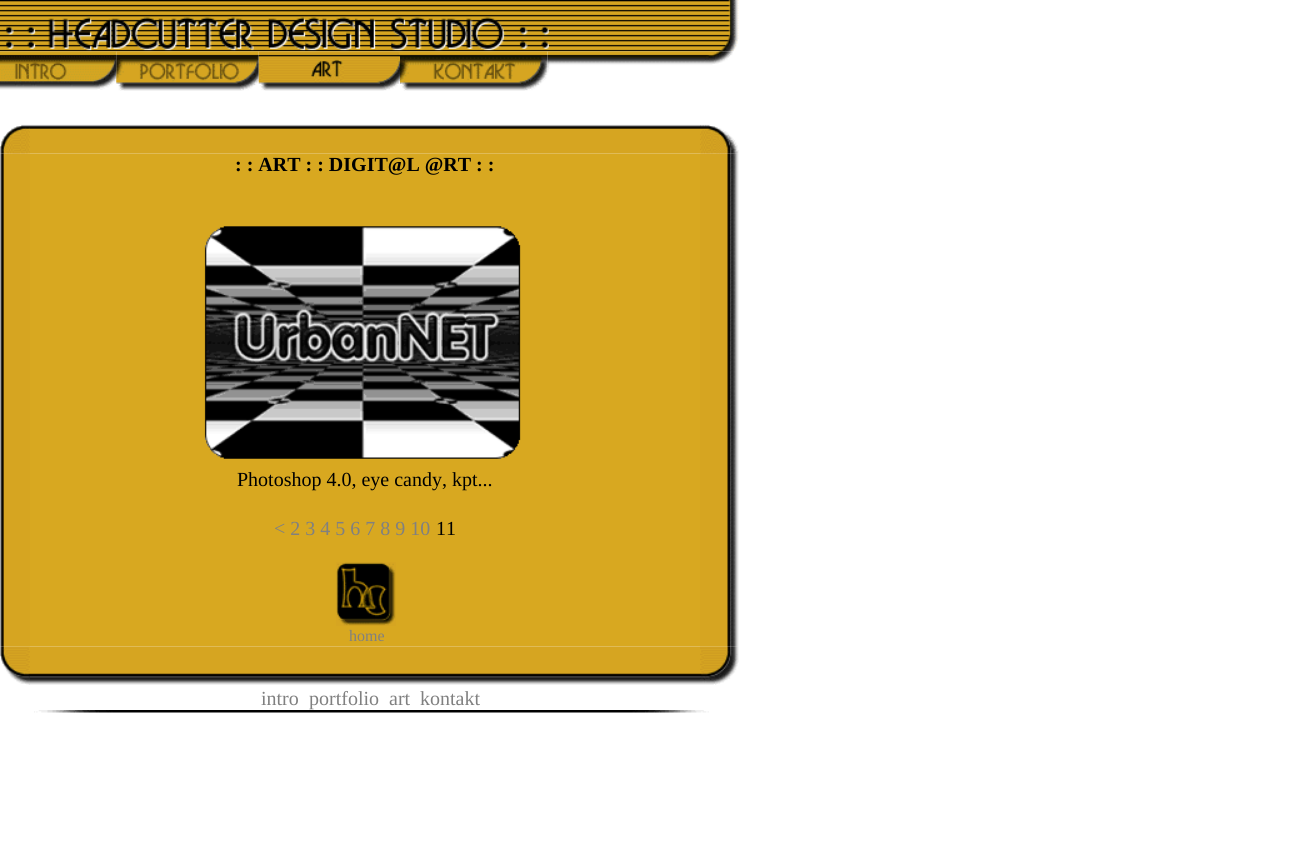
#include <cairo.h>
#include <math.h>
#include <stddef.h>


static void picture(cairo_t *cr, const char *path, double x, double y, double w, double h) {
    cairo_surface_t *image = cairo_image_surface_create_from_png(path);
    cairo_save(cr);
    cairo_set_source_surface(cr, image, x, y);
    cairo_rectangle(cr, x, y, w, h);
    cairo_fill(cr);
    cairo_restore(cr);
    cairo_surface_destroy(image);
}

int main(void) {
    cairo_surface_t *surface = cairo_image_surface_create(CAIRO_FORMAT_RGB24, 1312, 861);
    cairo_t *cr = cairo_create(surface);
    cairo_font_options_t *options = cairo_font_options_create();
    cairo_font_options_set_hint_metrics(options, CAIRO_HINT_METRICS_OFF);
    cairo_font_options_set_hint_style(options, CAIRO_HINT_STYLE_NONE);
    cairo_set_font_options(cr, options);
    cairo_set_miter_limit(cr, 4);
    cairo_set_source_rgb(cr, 1, 1, 1);
    cairo_paint(cr);
    picture(cr, "img1.png", 0, 0, 739, 52);
    picture(cr, "img2.png", 0, 51, 117, 39);
    picture(cr, "img3.png", 116, 51, 143, 40);
    picture(cr, "img4.png", 258, 51, 142, 40);
    picture(cr, "img5.png", 400, 51, 148, 40);
    picture(cr, "img6.png", 547, 51, 186, 22);
    picture(cr, "img10.png", 0, 153, 30, 494);
    picture(cr, "img7.png", 0, 124, 30, 30);
    picture(cr, "img8.png", 30, 124, 670, 30);
    picture(cr, "img13.png", 700, 153, 39, 494);
    picture(cr, "img9.png", 700, 124, 39, 30);
    cairo_set_source_rgb(cr, 0.847, 0.659, 0.125);
    cairo_rectangle(cr, 30, 154, 670, 492);
    cairo_fill(cr);
    cairo_select_font_face(cr, "Liberation Serif", CAIRO_FONT_SLANT_NORMAL, CAIRO_FONT_WEIGHT_BOLD);
    cairo_set_font_size(cr, 20);
    cairo_set_source_rgb(cr, 0, 0, 0);
    cairo_move_to(cr, 235, 171);
    cairo_show_text(cr, ": : ART : : DIGIT@L @RT : :");
    picture(cr, "img11.png", 204, 226, 317, 233);
    cairo_select_font_face(cr, "Liberation Serif", CAIRO_FONT_SLANT_NORMAL, CAIRO_FONT_WEIGHT_NORMAL);
    cairo_move_to(cr, 237, 486);
    cairo_show_text(cr, "Photoshop 4.0, eye candy, kpt...");
    cairo_set_source_rgb(cr, 0.502, 0.502, 0.502);
    cairo_move_to(cr, 274, 535);
    cairo_show_text(cr, "< 2 3 4 5 6 7 8 9 10");
    cairo_set_source_rgb(cr, 0, 0, 0);
    cairo_move_to(cr, 436, 535);
    cairo_show_text(cr, "11");
    picture(cr, "img12.png", 336, 562, 60, 64);
    cairo_set_font_size(cr, 16);
    cairo_set_source_rgb(cr, 0.502, 0.502, 0.502);
    cairo_move_to(cr, 349, 641);
    cairo_show_text(cr, "home");
    picture(cr, "img14.png", 0, 646, 30, 39);
    picture(cr, "img15.png", 30, 646, 670, 39);
    picture(cr, "img16.png", 700, 646, 39, 39);
    cairo_set_font_size(cr, 20);
    cairo_move_to(cr, 261, 705);
    cairo_show_text(cr, "intro");
    cairo_move_to(cr, 309, 705);
    cairo_show_text(cr, "portfolio");
    cairo_move_to(cr, 389, 705);
    cairo_show_text(cr, "art");
    cairo_move_to(cr, 420, 705);
    cairo_show_text(cr, "kontakt");
    picture(cr, "img17.png", 34, 710, 675, 3);
    cairo_surface_write_to_png(surface, "page.png");
    cairo_font_options_destroy(options);
    cairo_destroy(cr);
    cairo_surface_destroy(surface);
    return 0;
}
